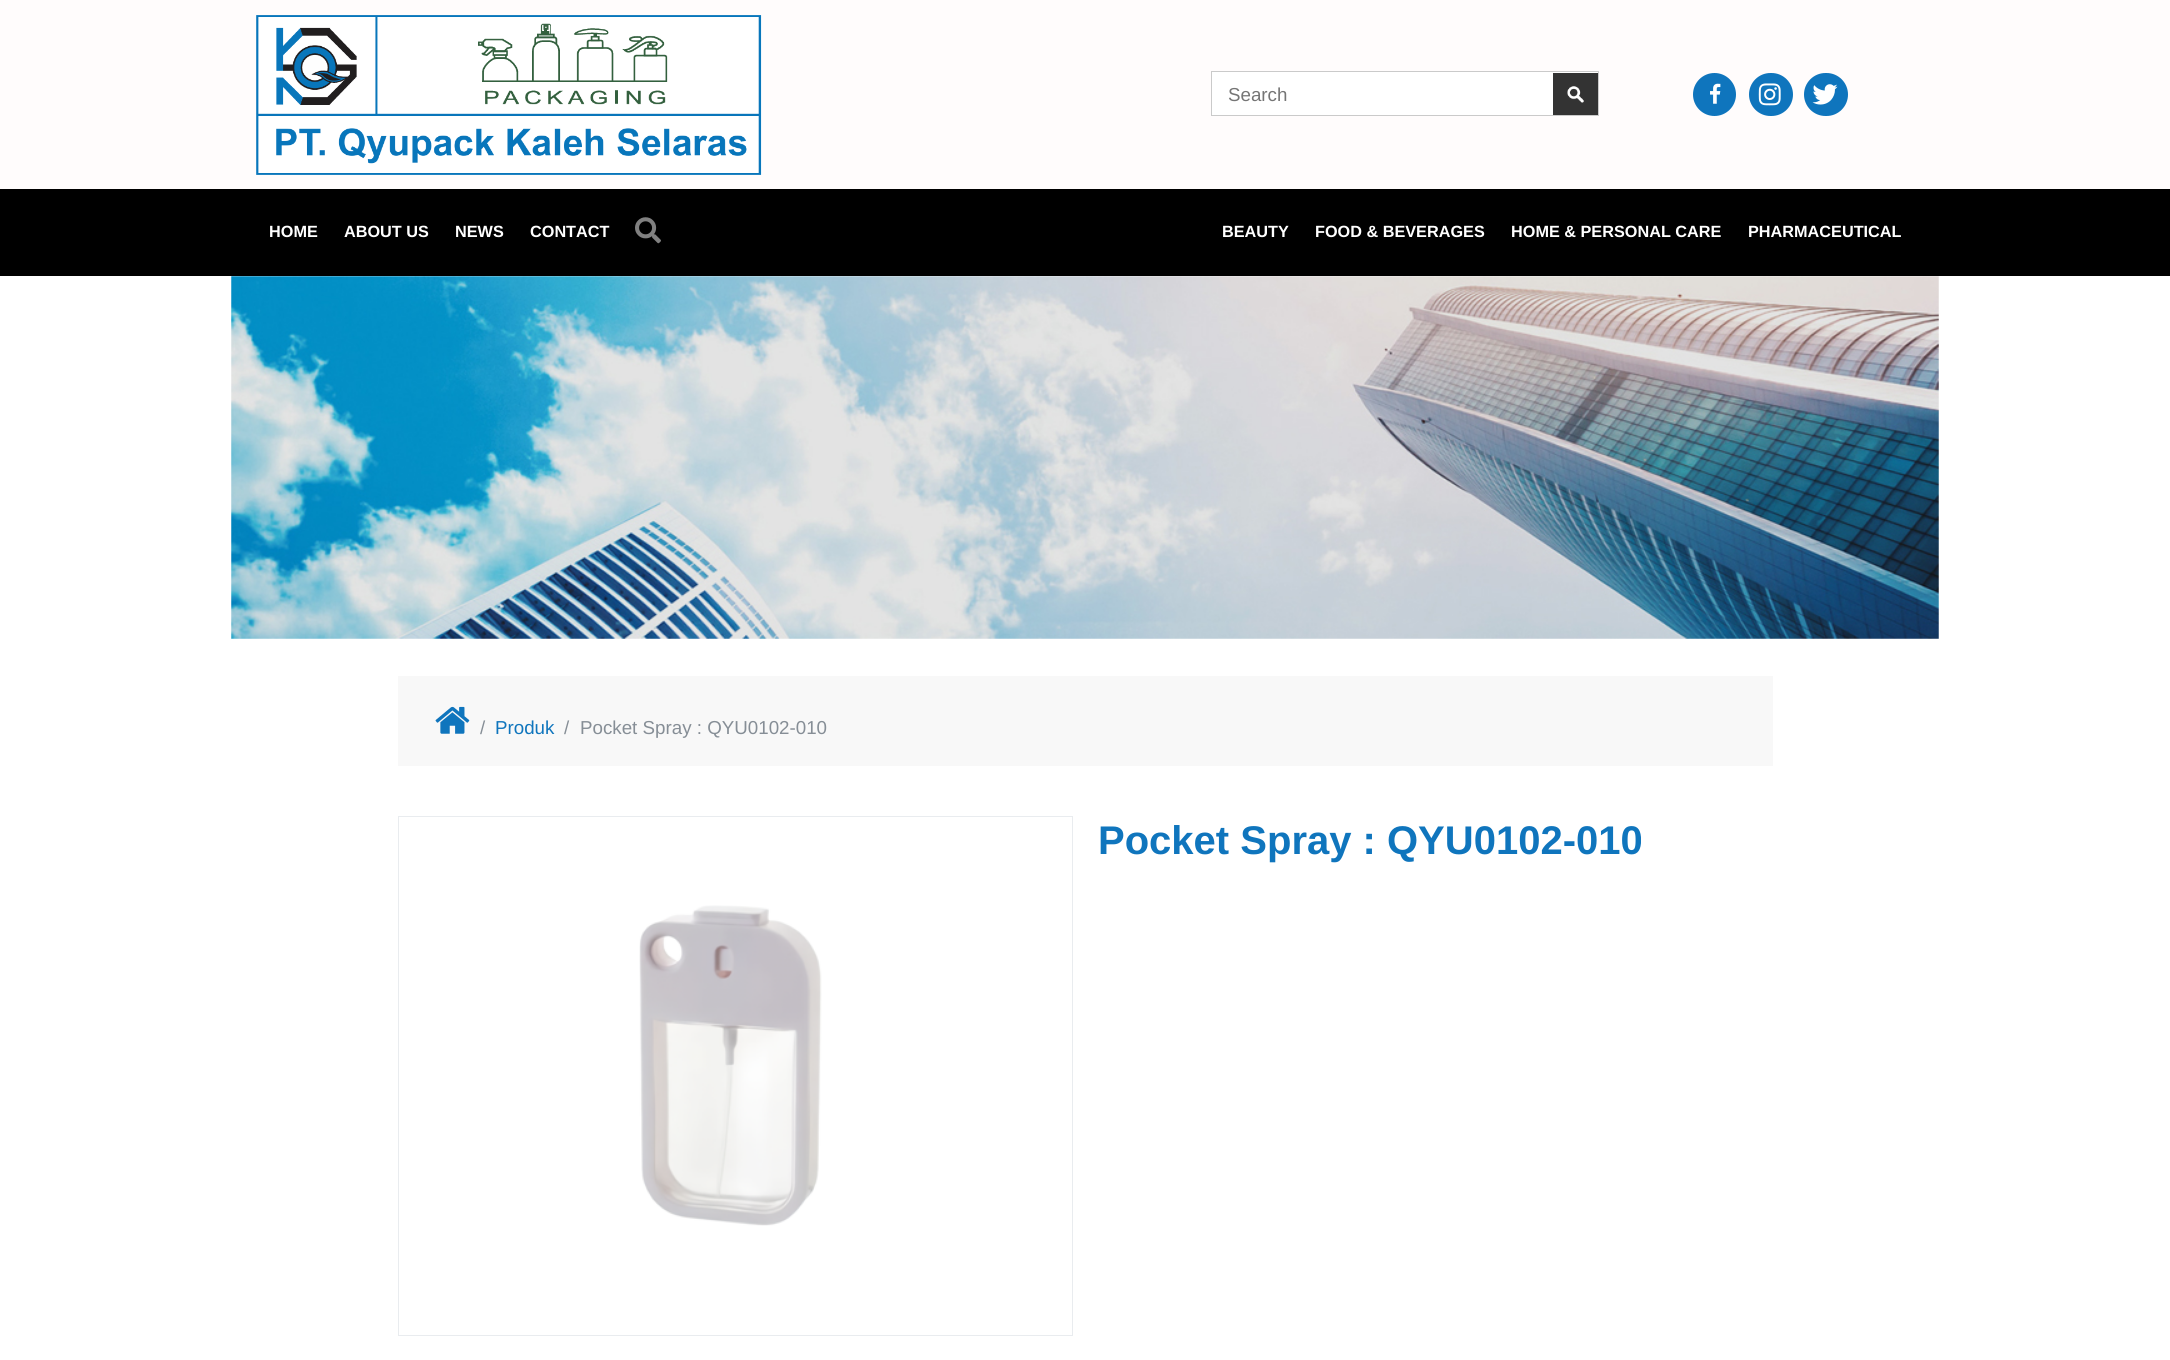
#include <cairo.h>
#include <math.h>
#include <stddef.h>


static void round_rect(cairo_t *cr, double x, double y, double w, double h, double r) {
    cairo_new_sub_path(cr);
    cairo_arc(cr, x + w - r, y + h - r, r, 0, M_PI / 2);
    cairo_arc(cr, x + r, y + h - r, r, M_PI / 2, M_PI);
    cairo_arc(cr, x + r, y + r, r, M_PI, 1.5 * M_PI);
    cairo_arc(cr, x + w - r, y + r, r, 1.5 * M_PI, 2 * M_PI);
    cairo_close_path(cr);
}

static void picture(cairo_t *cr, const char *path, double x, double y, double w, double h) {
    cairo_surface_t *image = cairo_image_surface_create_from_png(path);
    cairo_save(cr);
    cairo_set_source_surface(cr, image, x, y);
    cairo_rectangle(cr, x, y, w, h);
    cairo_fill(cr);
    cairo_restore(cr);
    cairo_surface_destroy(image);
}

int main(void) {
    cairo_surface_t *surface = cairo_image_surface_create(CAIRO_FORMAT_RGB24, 2170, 1360);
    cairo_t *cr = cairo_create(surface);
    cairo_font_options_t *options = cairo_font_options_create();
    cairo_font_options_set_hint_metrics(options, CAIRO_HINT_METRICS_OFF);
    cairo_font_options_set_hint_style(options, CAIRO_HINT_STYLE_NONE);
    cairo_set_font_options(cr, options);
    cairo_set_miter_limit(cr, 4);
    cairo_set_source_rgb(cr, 1, 1, 1);
    cairo_paint(cr);
    cairo_set_source_rgb(cr, 1, 0.988, 0.988);
    cairo_rectangle(cr, 0, 0, 2170, 189);
    cairo_fill(cr);
    picture(cr, "img1.png", 256, 15, 506, 160);
    cairo_set_source_rgb(cr, 1, 1, 1);
    cairo_rectangle(cr, 1211.5, 71.5, 387, 44);
    cairo_fill_preserve(cr);
    cairo_set_source_rgb(cr, 0.792, 0.792, 0.792);
    cairo_set_line_width(cr, 1);
    cairo_stroke(cr);
    cairo_select_font_face(cr, "Liberation Sans", CAIRO_FONT_SLANT_NORMAL, CAIRO_FONT_WEIGHT_NORMAL);
    cairo_set_font_size(cr, 18.75);
    cairo_set_source_rgb(cr, 0.459, 0.459, 0.459);
    cairo_move_to(cr, 1228, 101);
    cairo_show_text(cr, "Search");
    cairo_set_source_rgb(cr, 0.2, 0.2, 0.2);
    cairo_rectangle(cr, 1553, 73, 45, 42);
    cairo_fill(cr);
    picture(cr, "img2.png", 1567, 86, 17, 17);
    cairo_set_source_rgb(cr, 0.059, 0.459, 0.741);
    cairo_arc(cr, 1714.5, 94.5, 21.5, 0, 2 * M_PI);
    cairo_fill(cr);
    picture(cr, "img3.png", 1710, 83, 11, 21);
    round_rect(cr, 1749, 73, 44, 43, 21.5);
    cairo_fill(cr);
    picture(cr, "img4.png", 1758, 83, 23, 23);
    round_rect(cr, 1804, 73, 44, 43, 21.5);
    cairo_fill(cr);
    picture(cr, "img5.png", 1812, 84, 26, 21);
    cairo_set_source_rgb(cr, 0, 0, 0);
    cairo_rectangle(cr, 0, 189, 2170, 87);
    cairo_fill(cr);
    cairo_select_font_face(cr, "Liberation Sans", CAIRO_FONT_SLANT_NORMAL, CAIRO_FONT_WEIGHT_BOLD);
    cairo_set_font_size(cr, 16.25);
    cairo_set_source_rgb(cr, 1, 1, 1);
    cairo_move_to(cr, 269, 237);
    cairo_show_text(cr, "HOME");
    cairo_move_to(cr, 344, 237);
    cairo_show_text(cr, "ABOUT US");
    cairo_move_to(cr, 455, 237);
    cairo_show_text(cr, "NEWS");
    cairo_move_to(cr, 530, 237);
    cairo_show_text(cr, "CONTACT");
    picture(cr, "img6.png", 635, 217, 26, 27);
    cairo_move_to(cr, 1222, 237);
    cairo_show_text(cr, "BEAUTY");
    cairo_move_to(cr, 1315, 237);
    cairo_show_text(cr, "FOOD & BEVERAGES");
    cairo_move_to(cr, 1511, 237);
    cairo_show_text(cr, "HOME & PERSONAL CARE");
    cairo_move_to(cr, 1748, 237);
    cairo_show_text(cr, "PHARMACEUTICAL");
    picture(cr, "img7.png", 231, 276, 1708, 363);
    cairo_set_source_rgb(cr, 0.969, 0.969, 0.969);
    cairo_rectangle(cr, 398, 676, 1375, 90);
    cairo_fill(cr);
    picture(cr, "img8.png", 435, 706, 35, 28);
    cairo_select_font_face(cr, "Liberation Sans", CAIRO_FONT_SLANT_NORMAL, CAIRO_FONT_WEIGHT_NORMAL);
    cairo_set_font_size(cr, 18.75);
    cairo_set_source_rgb(cr, 0.525, 0.557, 0.588);
    cairo_move_to(cr, 480, 734);
    cairo_show_text(cr, "/");
    cairo_set_source_rgb(cr, 0.059, 0.459, 0.741);
    cairo_move_to(cr, 495, 734);
    cairo_show_text(cr, "Produk");
    cairo_set_source_rgb(cr, 0.525, 0.557, 0.588);
    cairo_move_to(cr, 564, 734);
    cairo_show_text(cr, "/");
    cairo_move_to(cr, 580, 734);
    cairo_show_text(cr, "Pocket Spray : QYU0102-010");
    cairo_rectangle(cr, 398.5, 816.5, 674, 519);
    cairo_set_source_rgb(cr, 0.914, 0.925, 0.937);
    cairo_stroke(cr);
    picture(cr, "img9.png", 639, 905, 183, 321);
    cairo_select_font_face(cr, "Liberation Sans", CAIRO_FONT_SLANT_NORMAL, CAIRO_FONT_WEIGHT_BOLD);
    cairo_set_font_size(cr, 40);
    cairo_set_source_rgb(cr, 0.059, 0.459, 0.741);
    cairo_move_to(cr, 1098, 854);
    cairo_show_text(cr, "Pocket Spray : QYU0102-010");
    cairo_surface_write_to_png(surface, "page.png");
    cairo_font_options_destroy(options);
    cairo_destroy(cr);
    cairo_surface_destroy(surface);
    return 0;
}
